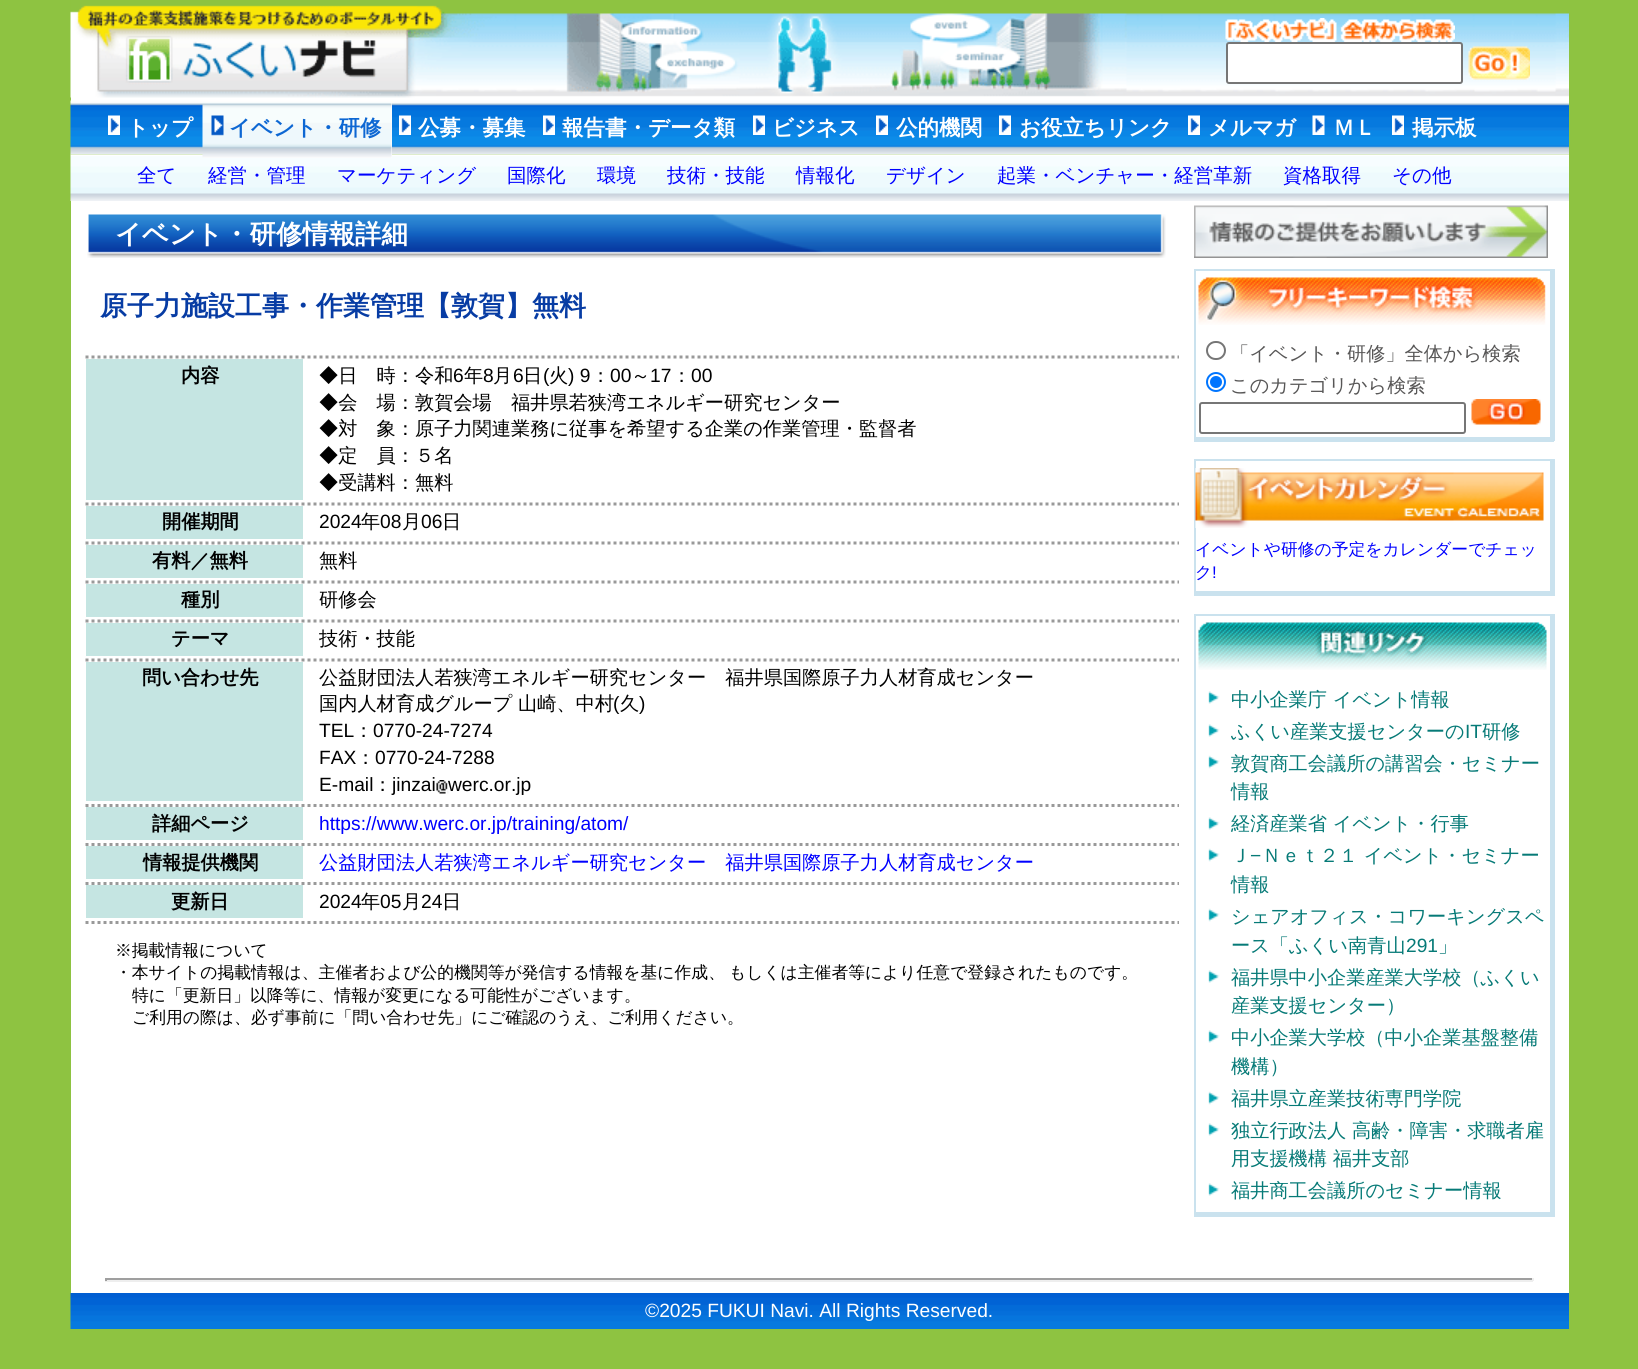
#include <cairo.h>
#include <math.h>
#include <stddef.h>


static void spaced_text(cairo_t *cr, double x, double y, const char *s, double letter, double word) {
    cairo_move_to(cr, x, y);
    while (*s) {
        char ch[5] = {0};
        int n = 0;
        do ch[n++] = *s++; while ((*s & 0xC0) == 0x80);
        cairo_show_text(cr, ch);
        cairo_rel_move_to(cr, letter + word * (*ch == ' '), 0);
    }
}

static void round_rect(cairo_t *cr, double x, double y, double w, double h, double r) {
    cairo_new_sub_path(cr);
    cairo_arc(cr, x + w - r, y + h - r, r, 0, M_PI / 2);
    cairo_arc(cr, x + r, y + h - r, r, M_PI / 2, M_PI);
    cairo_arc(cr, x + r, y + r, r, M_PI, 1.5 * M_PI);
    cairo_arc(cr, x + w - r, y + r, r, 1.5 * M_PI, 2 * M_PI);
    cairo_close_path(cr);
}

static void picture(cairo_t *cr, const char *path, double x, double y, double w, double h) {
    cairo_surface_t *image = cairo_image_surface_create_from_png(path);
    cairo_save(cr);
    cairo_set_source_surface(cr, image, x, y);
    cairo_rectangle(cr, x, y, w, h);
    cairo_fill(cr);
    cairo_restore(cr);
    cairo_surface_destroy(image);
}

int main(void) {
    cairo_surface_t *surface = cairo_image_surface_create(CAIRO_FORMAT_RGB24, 1638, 1369);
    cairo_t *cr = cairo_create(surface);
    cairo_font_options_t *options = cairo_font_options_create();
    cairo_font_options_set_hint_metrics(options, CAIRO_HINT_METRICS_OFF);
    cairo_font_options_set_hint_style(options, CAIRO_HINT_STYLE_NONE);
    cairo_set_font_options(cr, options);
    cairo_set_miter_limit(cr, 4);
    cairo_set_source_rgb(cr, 0.557, 0.765, 0.255);
    cairo_paint(cr);
    cairo_set_source_rgb(cr, 1, 1, 1);
    cairo_rectangle(cr, 71, 97, 1498, 4);
    cairo_fill(cr);
    picture(cr, "img1.png", 70, 0, 1499, 98);
    picture(cr, "img2.png", 1225, 18, 230, 24);
    round_rect(cr, 1227, 43, 235, 40, 2);
    cairo_fill_preserve(cr);
    cairo_set_source_rgb(cr, 0.463, 0.463, 0.463);
    cairo_stroke(cr);
    picture(cr, "img3.png", 1468, 46, 62, 34);
    picture(cr, "img4.png", 70, 100, 1499, 55);
    picture(cr, "img5.png", 108, 115, 12, 20);
    cairo_select_font_face(cr, "WenQuanYi Zen Hei", CAIRO_FONT_SLANT_NORMAL, CAIRO_FONT_WEIGHT_BOLD);
    cairo_set_font_size(cr, 21.5);
    cairo_set_source_rgb(cr, 1, 1, 1);
    cairo_move_to(cr, 127, 135);
    cairo_show_text(cr, "トップ");
    picture(cr, "img10.png", 70, 154, 1499, 47);
    cairo_rectangle(cr, 203, 102, 189, 56);
    cairo_fill(cr);
    picture(cr, "img6.png", 202, 102, 190, 56);
    cairo_set_source_rgb(cr, 0.051, 0.404, 0.827);
    cairo_move_to(cr, 229, 135);
    cairo_show_text(cr, "イベント・研修");
    picture(cr, "img7.png", 399, 115, 12, 20);
    cairo_set_source_rgb(cr, 1, 1, 1);
    cairo_move_to(cr, 418, 135);
    cairo_show_text(cr, "公募・募集");
    picture(cr, "img5.png", 543, 115, 12, 20);
    cairo_move_to(cr, 562, 135);
    cairo_show_text(cr, "報告書・データ類");
    picture(cr, "img8.png", 753, 115, 12, 20);
    cairo_move_to(cr, 772, 135);
    cairo_show_text(cr, "ビジネス");
    picture(cr, "img5.png", 876, 115, 12, 20);
    cairo_move_to(cr, 896, 135);
    cairo_show_text(cr, "公的機関");
    picture(cr, "img5.png", 999, 115, 12, 20);
    cairo_move_to(cr, 1019, 135);
    cairo_show_text(cr, "お役立ちリンク");
    picture(cr, "img7.png", 1188, 115, 12, 20);
    cairo_move_to(cr, 1208, 135);
    cairo_show_text(cr, "メルマガ");
    picture(cr, "img9.png", 1312, 115, 13, 20);
    cairo_move_to(cr, 1333, 135);
    cairo_show_text(cr, "ＭＬ");
    picture(cr, "img5.png", 1392, 115, 12, 20);
    cairo_move_to(cr, 1412, 135);
    cairo_show_text(cr, "掲示板");
    cairo_select_font_face(cr, "WenQuanYi Zen Hei Medium", CAIRO_FONT_SLANT_NORMAL, CAIRO_FONT_WEIGHT_NORMAL);
    cairo_set_font_size(cr, 19.5);
    cairo_set_source_rgb(cr, 0, 0, 1);
    cairo_move_to(cr, 137, 182);
    cairo_show_text(cr, "全て");
    cairo_move_to(cr, 208, 182);
    cairo_show_text(cr, "経営・管理");
    cairo_move_to(cr, 337, 182);
    cairo_show_text(cr, "マーケティング");
    cairo_move_to(cr, 507, 182);
    cairo_show_text(cr, "国際化");
    cairo_move_to(cr, 597, 182);
    cairo_show_text(cr, "環境");
    cairo_move_to(cr, 667, 182);
    cairo_show_text(cr, "技術・技能");
    cairo_move_to(cr, 796, 182);
    cairo_show_text(cr, "情報化");
    cairo_move_to(cr, 886, 182);
    cairo_show_text(cr, "デザイン");
    cairo_move_to(cr, 997, 182);
    cairo_show_text(cr, "起業・ベンチャー・経営革新");
    cairo_move_to(cr, 1283, 182);
    cairo_show_text(cr, "資格取得");
    cairo_move_to(cr, 1392, 182);
    cairo_show_text(cr, "その他");
    cairo_set_source_rgb(cr, 1, 1, 1);
    cairo_rectangle(cr, 71, 201, 1498, 1092);
    cairo_fill(cr);
    picture(cr, "img11.png", 87, 214, 1079, 44);
    cairo_select_font_face(cr, "WenQuanYi Zen Hei", CAIRO_FONT_SLANT_NORMAL, CAIRO_FONT_WEIGHT_BOLD);
    cairo_set_font_size(cr, 26.4);
    cairo_move_to(cr, 115, 243);
    cairo_show_text(cr, "イベント・研修情報詳細");
    cairo_set_font_size(cr, 27);
    cairo_set_source_rgb(cr, 0.031, 0.235, 0.643);
    cairo_move_to(cr, 100, 315);
    cairo_show_text(cr, "原子力施設工事・作業管理【敦賀】無料");
    cairo_new_path(cr);
    cairo_move_to(cr, 85.5, 357);
    cairo_line_to(cr, 1179, 357);
    cairo_set_source_rgb(cr, 0.6, 0.6, 0.6);
    cairo_set_line_width(cr, 3);
    cairo_set_dash(cr, (double[]){3, 3}, 2, 0);
    cairo_stroke(cr);
    cairo_set_source_rgb(cr, 0.773, 0.898, 0.886);
    cairo_rectangle(cr, 86, 359, 217, 141);
    cairo_fill(cr);
    cairo_set_font_size(cr, 19.2);
    cairo_set_source_rgb(cr, 0, 0, 0);
    cairo_move_to(cr, 181, 382);
    cairo_show_text(cr, "内容");
    cairo_select_font_face(cr, "WenQuanYi Zen Hei Medium", CAIRO_FONT_SLANT_NORMAL, CAIRO_FONT_WEIGHT_NORMAL);
    cairo_move_to(cr, 319, 382);
    cairo_show_text(cr, "◆日　時：令和");
    cairo_select_font_face(cr, "Liberation Sans", CAIRO_FONT_SLANT_NORMAL, CAIRO_FONT_WEIGHT_NORMAL);
    cairo_move_to(cr, 453, 382);
    cairo_show_text(cr, "6");
    cairo_select_font_face(cr, "WenQuanYi Zen Hei Medium", CAIRO_FONT_SLANT_NORMAL, CAIRO_FONT_WEIGHT_NORMAL);
    cairo_move_to(cr, 464, 382);
    cairo_show_text(cr, "年");
    cairo_select_font_face(cr, "Liberation Sans", CAIRO_FONT_SLANT_NORMAL, CAIRO_FONT_WEIGHT_NORMAL);
    cairo_move_to(cr, 483, 382);
    cairo_show_text(cr, "8");
    cairo_select_font_face(cr, "WenQuanYi Zen Hei Medium", CAIRO_FONT_SLANT_NORMAL, CAIRO_FONT_WEIGHT_NORMAL);
    cairo_move_to(cr, 493, 382);
    cairo_show_text(cr, "月");
    cairo_select_font_face(cr, "Liberation Sans", CAIRO_FONT_SLANT_NORMAL, CAIRO_FONT_WEIGHT_NORMAL);
    cairo_move_to(cr, 513, 382);
    cairo_show_text(cr, "6");
    cairo_select_font_face(cr, "WenQuanYi Zen Hei Medium", CAIRO_FONT_SLANT_NORMAL, CAIRO_FONT_WEIGHT_NORMAL);
    cairo_move_to(cr, 523, 382);
    cairo_show_text(cr, "日");
    cairo_select_font_face(cr, "Liberation Sans", CAIRO_FONT_SLANT_NORMAL, CAIRO_FONT_WEIGHT_NORMAL);
    cairo_move_to(cr, 543, 382);
    cairo_show_text(cr, "(");
    cairo_select_font_face(cr, "WenQuanYi Zen Hei Medium", CAIRO_FONT_SLANT_NORMAL, CAIRO_FONT_WEIGHT_NORMAL);
    cairo_move_to(cr, 549, 382);
    cairo_show_text(cr, "火");
    cairo_select_font_face(cr, "Liberation Sans", CAIRO_FONT_SLANT_NORMAL, CAIRO_FONT_WEIGHT_NORMAL);
    cairo_move_to(cr, 568, 382);
    cairo_show_text(cr, ") 9");
    cairo_select_font_face(cr, "WenQuanYi Zen Hei Medium", CAIRO_FONT_SLANT_NORMAL, CAIRO_FONT_WEIGHT_NORMAL);
    cairo_move_to(cr, 591, 382);
    cairo_show_text(cr, "：");
    cairo_select_font_face(cr, "Liberation Sans", CAIRO_FONT_SLANT_NORMAL, CAIRO_FONT_WEIGHT_NORMAL);
    cairo_move_to(cr, 610, 382);
    cairo_show_text(cr, "00");
    cairo_select_font_face(cr, "WenQuanYi Zen Hei Medium", CAIRO_FONT_SLANT_NORMAL, CAIRO_FONT_WEIGHT_NORMAL);
    cairo_move_to(cr, 631, 382);
    cairo_show_text(cr, "～");
    cairo_select_font_face(cr, "Liberation Sans", CAIRO_FONT_SLANT_NORMAL, CAIRO_FONT_WEIGHT_NORMAL);
    cairo_move_to(cr, 650, 382);
    cairo_show_text(cr, "17");
    cairo_select_font_face(cr, "WenQuanYi Zen Hei Medium", CAIRO_FONT_SLANT_NORMAL, CAIRO_FONT_WEIGHT_NORMAL);
    cairo_move_to(cr, 672, 382);
    cairo_show_text(cr, "：");
    cairo_select_font_face(cr, "Liberation Sans", CAIRO_FONT_SLANT_NORMAL, CAIRO_FONT_WEIGHT_NORMAL);
    cairo_move_to(cr, 691, 382);
    cairo_show_text(cr, "00");
    cairo_select_font_face(cr, "WenQuanYi Zen Hei Medium", CAIRO_FONT_SLANT_NORMAL, CAIRO_FONT_WEIGHT_NORMAL);
    cairo_move_to(cr, 319, 409);
    cairo_show_text(cr, "◆会　場：敦賀会場　福井県若狭湾エネルギー研究センター");
    cairo_move_to(cr, 319, 435);
    cairo_show_text(cr, "◆対　象：原子力関連業務に従事を希望する企業の作業管理・監督者");
    cairo_move_to(cr, 319, 462);
    cairo_show_text(cr, "◆定　員：５名");
    cairo_move_to(cr, 319, 489);
    cairo_show_text(cr, "◆受講料：無料");
    cairo_new_path(cr);
    cairo_move_to(cr, 85.5, 504);
    cairo_line_to(cr, 1179, 504);
    cairo_set_source_rgb(cr, 0.6, 0.6, 0.6);
    cairo_stroke(cr);
    cairo_set_source_rgb(cr, 0.773, 0.898, 0.886);
    cairo_rectangle(cr, 86, 506, 217, 33);
    cairo_fill(cr);
    cairo_select_font_face(cr, "WenQuanYi Zen Hei", CAIRO_FONT_SLANT_NORMAL, CAIRO_FONT_WEIGHT_BOLD);
    cairo_set_source_rgb(cr, 0, 0, 0);
    cairo_move_to(cr, 162, 528);
    cairo_show_text(cr, "開催期間");
    cairo_select_font_face(cr, "Liberation Sans", CAIRO_FONT_SLANT_NORMAL, CAIRO_FONT_WEIGHT_NORMAL);
    cairo_move_to(cr, 319, 528);
    cairo_show_text(cr, "2024");
    cairo_select_font_face(cr, "WenQuanYi Zen Hei Medium", CAIRO_FONT_SLANT_NORMAL, CAIRO_FONT_WEIGHT_NORMAL);
    cairo_move_to(cr, 361, 528);
    cairo_show_text(cr, "年");
    cairo_select_font_face(cr, "Liberation Sans", CAIRO_FONT_SLANT_NORMAL, CAIRO_FONT_WEIGHT_NORMAL);
    cairo_move_to(cr, 380, 528);
    cairo_show_text(cr, "08");
    cairo_select_font_face(cr, "WenQuanYi Zen Hei Medium", CAIRO_FONT_SLANT_NORMAL, CAIRO_FONT_WEIGHT_NORMAL);
    cairo_move_to(cr, 402, 528);
    cairo_show_text(cr, "月");
    cairo_select_font_face(cr, "Liberation Sans", CAIRO_FONT_SLANT_NORMAL, CAIRO_FONT_WEIGHT_NORMAL);
    cairo_move_to(cr, 421, 528);
    cairo_show_text(cr, "06");
    cairo_select_font_face(cr, "WenQuanYi Zen Hei Medium", CAIRO_FONT_SLANT_NORMAL, CAIRO_FONT_WEIGHT_NORMAL);
    cairo_move_to(cr, 442, 528);
    cairo_show_text(cr, "日");
    cairo_new_path(cr);
    cairo_move_to(cr, 85.5, 543);
    cairo_line_to(cr, 1179, 543);
    cairo_set_source_rgb(cr, 0.6, 0.6, 0.6);
    cairo_stroke(cr);
    cairo_set_source_rgb(cr, 0.773, 0.898, 0.886);
    cairo_rectangle(cr, 86, 545, 217, 33);
    cairo_fill(cr);
    cairo_select_font_face(cr, "WenQuanYi Zen Hei", CAIRO_FONT_SLANT_NORMAL, CAIRO_FONT_WEIGHT_BOLD);
    cairo_set_source_rgb(cr, 0, 0, 0);
    cairo_move_to(cr, 152, 567);
    cairo_show_text(cr, "有料／無料");
    cairo_select_font_face(cr, "WenQuanYi Zen Hei Medium", CAIRO_FONT_SLANT_NORMAL, CAIRO_FONT_WEIGHT_NORMAL);
    cairo_move_to(cr, 319, 567);
    cairo_show_text(cr, "無料");
    cairo_new_path(cr);
    cairo_move_to(cr, 85.5, 582);
    cairo_line_to(cr, 1179, 582);
    cairo_set_source_rgb(cr, 0.6, 0.6, 0.6);
    cairo_stroke(cr);
    cairo_set_source_rgb(cr, 0.773, 0.898, 0.886);
    cairo_rectangle(cr, 86, 584, 217, 33);
    cairo_fill(cr);
    cairo_select_font_face(cr, "WenQuanYi Zen Hei", CAIRO_FONT_SLANT_NORMAL, CAIRO_FONT_WEIGHT_BOLD);
    cairo_set_source_rgb(cr, 0, 0, 0);
    cairo_move_to(cr, 181, 606);
    cairo_show_text(cr, "種別");
    cairo_select_font_face(cr, "WenQuanYi Zen Hei Medium", CAIRO_FONT_SLANT_NORMAL, CAIRO_FONT_WEIGHT_NORMAL);
    cairo_move_to(cr, 319, 606);
    cairo_show_text(cr, "研修会");
    cairo_new_path(cr);
    cairo_move_to(cr, 85.5, 621);
    cairo_line_to(cr, 1179, 621);
    cairo_set_source_rgb(cr, 0.6, 0.6, 0.6);
    cairo_stroke(cr);
    cairo_set_source_rgb(cr, 0.773, 0.898, 0.886);
    cairo_rectangle(cr, 86, 623, 217, 33);
    cairo_fill(cr);
    cairo_select_font_face(cr, "WenQuanYi Zen Hei", CAIRO_FONT_SLANT_NORMAL, CAIRO_FONT_WEIGHT_BOLD);
    cairo_set_source_rgb(cr, 0, 0, 0);
    cairo_move_to(cr, 171, 645);
    cairo_show_text(cr, "テーマ");
    cairo_select_font_face(cr, "WenQuanYi Zen Hei Medium", CAIRO_FONT_SLANT_NORMAL, CAIRO_FONT_WEIGHT_NORMAL);
    cairo_move_to(cr, 319, 645);
    cairo_show_text(cr, "技術・技能");
    cairo_new_path(cr);
    cairo_move_to(cr, 85.5, 660);
    cairo_line_to(cr, 1179, 660);
    cairo_set_source_rgb(cr, 0.6, 0.6, 0.6);
    cairo_stroke(cr);
    cairo_set_source_rgb(cr, 0.773, 0.898, 0.886);
    cairo_rectangle(cr, 86, 662, 217, 139);
    cairo_fill(cr);
    cairo_select_font_face(cr, "WenQuanYi Zen Hei", CAIRO_FONT_SLANT_NORMAL, CAIRO_FONT_WEIGHT_BOLD);
    cairo_set_source_rgb(cr, 0, 0, 0);
    cairo_move_to(cr, 142, 684);
    cairo_show_text(cr, "問い合わせ先");
    cairo_select_font_face(cr, "WenQuanYi Zen Hei Medium", CAIRO_FONT_SLANT_NORMAL, CAIRO_FONT_WEIGHT_NORMAL);
    cairo_move_to(cr, 319, 684);
    cairo_show_text(cr, "公益財団法人若狭湾エネルギー研究センター　福井県国際原子力人材育成センター");
    cairo_move_to(cr, 319, 710);
    cairo_show_text(cr, "国内人材育成グループ 山崎、中村");
    cairo_select_font_face(cr, "Liberation Sans", CAIRO_FONT_SLANT_NORMAL, CAIRO_FONT_WEIGHT_NORMAL);
    cairo_move_to(cr, 613, 710);
    cairo_show_text(cr, "(");
    cairo_select_font_face(cr, "WenQuanYi Zen Hei Medium", CAIRO_FONT_SLANT_NORMAL, CAIRO_FONT_WEIGHT_NORMAL);
    cairo_move_to(cr, 620, 710);
    cairo_show_text(cr, "久");
    cairo_select_font_face(cr, "Liberation Sans", CAIRO_FONT_SLANT_NORMAL, CAIRO_FONT_WEIGHT_NORMAL);
    cairo_move_to(cr, 639, 710);
    cairo_show_text(cr, ")");
    cairo_move_to(cr, 319, 737);
    cairo_show_text(cr, "TEL");
    cairo_select_font_face(cr, "WenQuanYi Zen Hei Medium", CAIRO_FONT_SLANT_NORMAL, CAIRO_FONT_WEIGHT_NORMAL);
    cairo_move_to(cr, 354, 737);
    cairo_show_text(cr, "：");
    cairo_select_font_face(cr, "Liberation Sans", CAIRO_FONT_SLANT_NORMAL, CAIRO_FONT_WEIGHT_NORMAL);
    cairo_move_to(cr, 373, 737);
    cairo_show_text(cr, "0770-24-7274");
    cairo_move_to(cr, 319, 764);
    cairo_show_text(cr, "FAX");
    cairo_select_font_face(cr, "WenQuanYi Zen Hei Medium", CAIRO_FONT_SLANT_NORMAL, CAIRO_FONT_WEIGHT_NORMAL);
    cairo_move_to(cr, 356, 764);
    cairo_show_text(cr, "：");
    cairo_select_font_face(cr, "Liberation Sans", CAIRO_FONT_SLANT_NORMAL, CAIRO_FONT_WEIGHT_NORMAL);
    cairo_move_to(cr, 375, 764);
    cairo_show_text(cr, "0770-24-7288");
    cairo_move_to(cr, 319, 791);
    cairo_show_text(cr, "E-mail");
    cairo_select_font_face(cr, "WenQuanYi Zen Hei Medium", CAIRO_FONT_SLANT_NORMAL, CAIRO_FONT_WEIGHT_NORMAL);
    cairo_move_to(cr, 373, 791);
    cairo_show_text(cr, "：");
    cairo_select_font_face(cr, "Liberation Sans", CAIRO_FONT_SLANT_NORMAL, CAIRO_FONT_WEIGHT_NORMAL);
    cairo_move_to(cr, 392, 791);
    cairo_show_text(cr, "jinzai");
    picture(cr, "img12.png", 436, 780, 13, 14);
    cairo_move_to(cr, 448, 791);
    cairo_show_text(cr, "werc.or.jp");
    cairo_new_path(cr);
    cairo_move_to(cr, 85.5, 805.5);
    cairo_line_to(cr, 1179, 805.5);
    cairo_set_source_rgb(cr, 0.6, 0.6, 0.6);
    cairo_stroke(cr);
    cairo_set_source_rgb(cr, 0.773, 0.898, 0.886);
    cairo_rectangle(cr, 86, 807, 217, 33);
    cairo_fill(cr);
    cairo_select_font_face(cr, "WenQuanYi Zen Hei", CAIRO_FONT_SLANT_NORMAL, CAIRO_FONT_WEIGHT_BOLD);
    cairo_set_source_rgb(cr, 0, 0, 0);
    cairo_move_to(cr, 152, 830);
    cairo_show_text(cr, "詳細ページ");
    cairo_select_font_face(cr, "Liberation Sans", CAIRO_FONT_SLANT_NORMAL, CAIRO_FONT_WEIGHT_NORMAL);
    cairo_set_source_rgb(cr, 0, 0, 1);
    cairo_move_to(cr, 319, 830);
    cairo_show_text(cr, "https://www.werc.or.jp/training/atom/");
    cairo_new_path(cr);
    cairo_move_to(cr, 85.5, 844.5);
    cairo_line_to(cr, 1179, 844.5);
    cairo_set_source_rgb(cr, 0.6, 0.6, 0.6);
    cairo_stroke(cr);
    cairo_set_source_rgb(cr, 0.773, 0.898, 0.886);
    cairo_rectangle(cr, 86, 846, 217, 33);
    cairo_fill(cr);
    cairo_select_font_face(cr, "WenQuanYi Zen Hei", CAIRO_FONT_SLANT_NORMAL, CAIRO_FONT_WEIGHT_BOLD);
    cairo_set_source_rgb(cr, 0, 0, 0);
    cairo_move_to(cr, 143, 869);
    cairo_show_text(cr, "情報提供機関");
    cairo_select_font_face(cr, "WenQuanYi Zen Hei Medium", CAIRO_FONT_SLANT_NORMAL, CAIRO_FONT_WEIGHT_NORMAL);
    cairo_set_source_rgb(cr, 0, 0, 1);
    cairo_move_to(cr, 319, 869);
    cairo_show_text(cr, "公益財団法人若狭湾エネルギー研究センター　福井県国際原子力人材育成センター");
    cairo_new_path(cr);
    cairo_move_to(cr, 85.5, 883.5);
    cairo_line_to(cr, 1179, 883.5);
    cairo_set_source_rgb(cr, 0.6, 0.6, 0.6);
    cairo_stroke(cr);
    cairo_set_source_rgb(cr, 0.773, 0.898, 0.886);
    cairo_rectangle(cr, 86, 885, 217, 33);
    cairo_fill(cr);
    cairo_select_font_face(cr, "WenQuanYi Zen Hei", CAIRO_FONT_SLANT_NORMAL, CAIRO_FONT_WEIGHT_BOLD);
    cairo_set_source_rgb(cr, 0, 0, 0);
    cairo_move_to(cr, 171, 908);
    cairo_show_text(cr, "更新日");
    cairo_select_font_face(cr, "Liberation Sans", CAIRO_FONT_SLANT_NORMAL, CAIRO_FONT_WEIGHT_NORMAL);
    cairo_move_to(cr, 319, 908);
    cairo_show_text(cr, "2024");
    cairo_select_font_face(cr, "WenQuanYi Zen Hei Medium", CAIRO_FONT_SLANT_NORMAL, CAIRO_FONT_WEIGHT_NORMAL);
    cairo_move_to(cr, 361, 908);
    cairo_show_text(cr, "年");
    cairo_select_font_face(cr, "Liberation Sans", CAIRO_FONT_SLANT_NORMAL, CAIRO_FONT_WEIGHT_NORMAL);
    cairo_move_to(cr, 380, 908);
    cairo_show_text(cr, "05");
    cairo_select_font_face(cr, "WenQuanYi Zen Hei Medium", CAIRO_FONT_SLANT_NORMAL, CAIRO_FONT_WEIGHT_NORMAL);
    cairo_move_to(cr, 402, 908);
    cairo_show_text(cr, "月");
    cairo_select_font_face(cr, "Liberation Sans", CAIRO_FONT_SLANT_NORMAL, CAIRO_FONT_WEIGHT_NORMAL);
    cairo_move_to(cr, 421, 908);
    cairo_show_text(cr, "24");
    cairo_select_font_face(cr, "WenQuanYi Zen Hei Medium", CAIRO_FONT_SLANT_NORMAL, CAIRO_FONT_WEIGHT_NORMAL);
    cairo_move_to(cr, 442, 908);
    cairo_show_text(cr, "日");
    cairo_new_path(cr);
    cairo_move_to(cr, 85.5, 922.5);
    cairo_line_to(cr, 1179, 922.5);
    cairo_set_source_rgb(cr, 0.6, 0.6, 0.6);
    cairo_stroke(cr);
    cairo_set_font_size(cr, 16.8);
    cairo_set_source_rgb(cr, 0, 0, 0);
    cairo_move_to(cr, 115, 956);
    cairo_show_text(cr, "※掲載情報について");
    spaced_text(cr, 115, 978, "・本サイトの掲載情報は、主催者および公的機関等が発信する情報を基に作成、 もしくは主催者等により任意で登録されたものです。", 0, -1);
    cairo_move_to(cr, 132, 1001);
    cairo_show_text(cr, "特に「更新日」以降等に、情報が変更になる可能性がございます。");
    cairo_move_to(cr, 132, 1023);
    cairo_show_text(cr, "ご利用の際は、必ず事前に「問い合わせ先」にご確認のうえ、ご利用ください。");
    picture(cr, "img13.png", 1194, 205, 354, 53);
    cairo_set_source_rgb(cr, 0.792, 0.886, 0.933);
    cairo_rectangle(cr, 1194, 269, 360, 2);
    cairo_fill(cr);
    cairo_rectangle(cr, 1550, 269, 5, 172);
    cairo_fill(cr);
    cairo_rectangle(cr, 1194, 437, 360, 5);
    cairo_fill(cr);
    cairo_rectangle(cr, 1194, 269, 2, 172);
    cairo_fill(cr);
    picture(cr, "img14.png", 1198, 277, 348, 48);
    round_rect(cr, 1207, 342, 18, 17, 8.5);
    cairo_set_source_rgb(cr, 0.463, 0.463, 0.463);
    cairo_set_line_width(cr, 2);
    cairo_set_dash(cr, NULL, 0, 0);
    cairo_stroke(cr);
    cairo_set_font_size(cr, 19.2);
    cairo_set_source_rgb(cr, 0.341, 0.337, 0.337);
    cairo_move_to(cr, 1230, 360);
    cairo_show_text(cr, "「イベント・研修」全体から検索");
    cairo_new_path(cr);
    cairo_arc(cr, 1216, 382, 9, 0, 2 * M_PI);
    cairo_set_source_rgb(cr, 0, 0.459, 1);
    cairo_stroke(cr);
    cairo_arc(cr, 1216, 382, 6, 0, 2 * M_PI);
    cairo_fill(cr);
    cairo_set_source_rgb(cr, 0.341, 0.337, 0.337);
    cairo_move_to(cr, 1230, 392);
    cairo_show_text(cr, "このカテゴリから検索");
    round_rect(cr, 1200, 403, 265, 30, 2);
    cairo_set_source_rgb(cr, 0.463, 0.463, 0.463);
    cairo_stroke(cr);
    picture(cr, "img15.png", 1471, 399, 70, 26);
    cairo_set_source_rgb(cr, 0.792, 0.886, 0.933);
    cairo_rectangle(cr, 1194, 459, 360, 2);
    cairo_fill(cr);
    cairo_rectangle(cr, 1550, 459, 5, 137);
    cairo_fill(cr);
    cairo_rectangle(cr, 1194, 591, 360, 5);
    cairo_fill(cr);
    cairo_rectangle(cr, 1194, 459, 2, 137);
    cairo_fill(cr);
    picture(cr, "img16.png", 1195, 468, 349, 60);
    cairo_set_font_size(cr, 16.8);
    cairo_set_source_rgb(cr, 0, 0, 1);
    cairo_move_to(cr, 1195, 555);
    cairo_show_text(cr, "イベントや研修の予定をカレンダーでチェッ");
    cairo_move_to(cr, 1195, 578);
    cairo_show_text(cr, "ク");
    cairo_select_font_face(cr, "Liberation Sans", CAIRO_FONT_SLANT_NORMAL, CAIRO_FONT_WEIGHT_NORMAL);
    cairo_move_to(cr, 1212, 578);
    cairo_show_text(cr, "!");
    cairo_set_source_rgb(cr, 0.792, 0.886, 0.933);
    cairo_rectangle(cr, 1194, 614, 360, 2);
    cairo_fill(cr);
    cairo_rectangle(cr, 1550, 614, 5, 603);
    cairo_fill(cr);
    cairo_rectangle(cr, 1194, 1212, 360, 5);
    cairo_fill(cr);
    cairo_rectangle(cr, 1194, 614, 2, 603);
    cairo_fill(cr);
    picture(cr, "img17.png", 1198, 622, 349, 48);
    picture(cr, "img18.png", 1208, 691, 12, 13);
    cairo_select_font_face(cr, "WenQuanYi Zen Hei Medium", CAIRO_FONT_SLANT_NORMAL, CAIRO_FONT_WEIGHT_NORMAL);
    cairo_set_font_size(cr, 19.2);
    cairo_set_source_rgb(cr, 0.024, 0.478, 0.467);
    cairo_move_to(cr, 1231, 706);
    cairo_show_text(cr, "中小企業庁 イベント情報");
    picture(cr, "img18.png", 1208, 724, 12, 13);
    cairo_move_to(cr, 1231, 738);
    cairo_show_text(cr, "ふくい産業支援センターの");
    cairo_select_font_face(cr, "Liberation Sans", CAIRO_FONT_SLANT_NORMAL, CAIRO_FONT_WEIGHT_NORMAL);
    cairo_move_to(cr, 1465, 738);
    cairo_show_text(cr, "IT");
    cairo_select_font_face(cr, "WenQuanYi Zen Hei Medium", CAIRO_FONT_SLANT_NORMAL, CAIRO_FONT_WEIGHT_NORMAL);
    cairo_move_to(cr, 1482, 738);
    cairo_show_text(cr, "研修");
    picture(cr, "img19.png", 1208, 755, 12, 14);
    cairo_move_to(cr, 1231, 770);
    cairo_show_text(cr, "敦賀商工会議所の講習会・セミナー");
    cairo_move_to(cr, 1231, 798);
    cairo_show_text(cr, "情報");
    picture(cr, "img18.png", 1208, 817, 12, 13);
    cairo_move_to(cr, 1231, 830);
    cairo_show_text(cr, "経済産業省 イベント・行事");
    picture(cr, "img19.png", 1208, 848, 12, 14);
    cairo_move_to(cr, 1231, 862);
    cairo_show_text(cr, "Ｊ");
    cairo_select_font_face(cr, "Liberation Sans", CAIRO_FONT_SLANT_NORMAL, CAIRO_FONT_WEIGHT_NORMAL);
    cairo_move_to(cr, 1250, 862);
    cairo_show_text(cr, "−");
    cairo_select_font_face(cr, "WenQuanYi Zen Hei Medium", CAIRO_FONT_SLANT_NORMAL, CAIRO_FONT_WEIGHT_NORMAL);
    cairo_move_to(cr, 1262, 862);
    cairo_show_text(cr, "Ｎｅｔ２１ イベント・セミナー");
    cairo_move_to(cr, 1231, 891);
    cairo_show_text(cr, "情報");
    picture(cr, "img19.png", 1208, 908, 12, 14);
    cairo_move_to(cr, 1231, 923);
    cairo_show_text(cr, "シェアオフィス・コワーキングスペ");
    cairo_move_to(cr, 1231, 952);
    cairo_show_text(cr, "ース「ふくい南青山");
    cairo_select_font_face(cr, "Liberation Sans", CAIRO_FONT_SLANT_NORMAL, CAIRO_FONT_WEIGHT_NORMAL);
    cairo_move_to(cr, 1406, 952);
    cairo_show_text(cr, "291");
    cairo_select_font_face(cr, "WenQuanYi Zen Hei Medium", CAIRO_FONT_SLANT_NORMAL, CAIRO_FONT_WEIGHT_NORMAL);
    cairo_move_to(cr, 1438, 952);
    cairo_show_text(cr, "」");
    picture(cr, "img18.png", 1208, 970, 12, 13);
    cairo_move_to(cr, 1231, 984);
    cairo_show_text(cr, "福井県中小企業産業大学校（ふくい");
    cairo_move_to(cr, 1231, 1012);
    cairo_show_text(cr, "産業支援センター）");
    picture(cr, "img18.png", 1208, 1030, 12, 13);
    cairo_move_to(cr, 1231, 1044);
    cairo_show_text(cr, "中小企業大学校（中小企業基盤整備");
    cairo_move_to(cr, 1231, 1073);
    cairo_show_text(cr, "機構）");
    picture(cr, "img19.png", 1208, 1091, 12, 14);
    cairo_move_to(cr, 1231, 1105);
    cairo_show_text(cr, "福井県立産業技術専門学院");
    picture(cr, "img18.png", 1208, 1123, 12, 13);
    cairo_move_to(cr, 1231, 1137);
    cairo_show_text(cr, "独立行政法人 高齢・障害・求職者雇");
    cairo_move_to(cr, 1231, 1165);
    cairo_show_text(cr, "用支援機構 福井支部");
    picture(cr, "img18.png", 1208, 1183, 12, 13);
    cairo_move_to(cr, 1231, 1197);
    cairo_show_text(cr, "福井商工会議所のセミナー情報");
    cairo_set_source_rgb(cr, 0.624, 0.624, 0.624);
    cairo_rectangle(cr, 105, 1278, 1428, 2);
    cairo_fill(cr);
    cairo_set_source_rgb(cr, 0.933, 0.933, 0.933);
    cairo_rectangle(cr, 1532, 1278, 2, 3);
    cairo_fill(cr);
    cairo_rectangle(cr, 105, 1280, 1428, 2);
    cairo_fill(cr);
    cairo_set_source_rgb(cr, 0.624, 0.624, 0.624);
    cairo_rectangle(cr, 105, 1278, 2, 3);
    cairo_fill(cr);
    picture(cr, "img20.png", 70, 1293, 1499, 36);
    cairo_select_font_face(cr, "Liberation Sans", CAIRO_FONT_SLANT_NORMAL, CAIRO_FONT_WEIGHT_NORMAL);
    cairo_set_source_rgb(cr, 1, 1, 1);
    cairo_move_to(cr, 645, 1317);
    cairo_show_text(cr, "©2025 FUKUI Navi. All Rights Reserved.");
    cairo_surface_write_to_png(surface, "page.png");
    cairo_font_options_destroy(options);
    cairo_destroy(cr);
    cairo_surface_destroy(surface);
    return 0;
}
